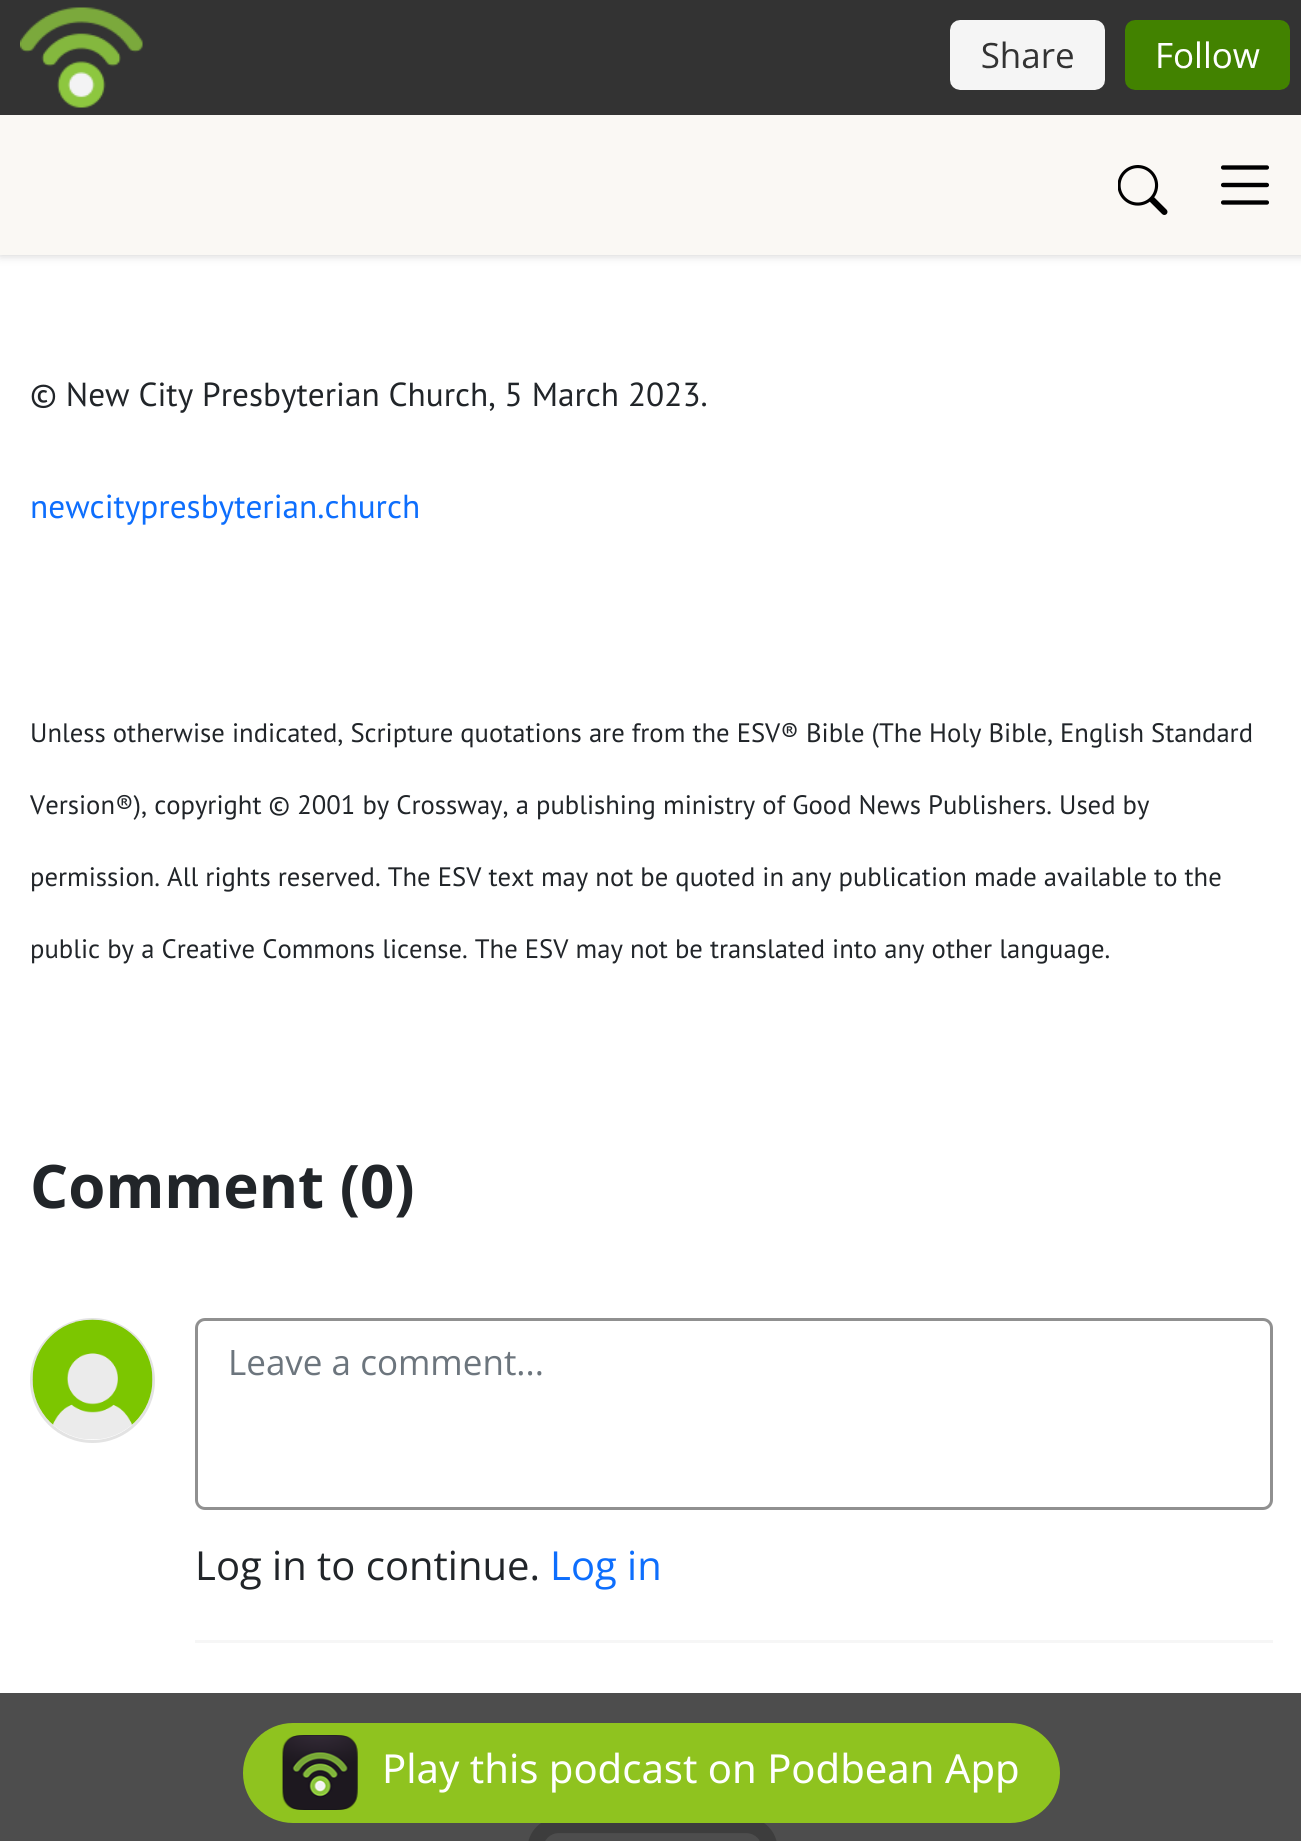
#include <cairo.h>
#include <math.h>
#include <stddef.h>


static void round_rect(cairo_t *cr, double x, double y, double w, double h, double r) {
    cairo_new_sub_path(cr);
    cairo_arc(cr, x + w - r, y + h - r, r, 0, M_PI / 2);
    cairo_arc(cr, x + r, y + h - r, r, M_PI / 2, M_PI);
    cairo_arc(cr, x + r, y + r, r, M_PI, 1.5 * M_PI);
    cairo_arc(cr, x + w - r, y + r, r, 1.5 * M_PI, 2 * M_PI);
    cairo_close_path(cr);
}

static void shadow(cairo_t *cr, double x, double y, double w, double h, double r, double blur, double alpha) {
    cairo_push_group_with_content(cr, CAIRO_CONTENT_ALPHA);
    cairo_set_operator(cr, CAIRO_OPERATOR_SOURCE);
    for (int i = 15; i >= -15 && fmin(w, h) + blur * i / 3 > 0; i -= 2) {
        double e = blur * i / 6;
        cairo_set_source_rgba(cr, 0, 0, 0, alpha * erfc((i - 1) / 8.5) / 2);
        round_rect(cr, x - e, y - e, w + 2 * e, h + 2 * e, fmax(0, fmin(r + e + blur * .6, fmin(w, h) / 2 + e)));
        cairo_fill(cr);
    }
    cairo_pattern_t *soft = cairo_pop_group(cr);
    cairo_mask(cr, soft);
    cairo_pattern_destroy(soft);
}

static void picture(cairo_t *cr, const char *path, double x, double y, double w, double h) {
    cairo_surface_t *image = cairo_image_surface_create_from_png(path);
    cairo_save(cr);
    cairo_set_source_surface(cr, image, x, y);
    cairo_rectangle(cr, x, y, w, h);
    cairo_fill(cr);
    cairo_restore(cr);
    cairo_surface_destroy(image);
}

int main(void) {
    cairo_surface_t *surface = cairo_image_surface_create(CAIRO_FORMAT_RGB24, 1301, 1841);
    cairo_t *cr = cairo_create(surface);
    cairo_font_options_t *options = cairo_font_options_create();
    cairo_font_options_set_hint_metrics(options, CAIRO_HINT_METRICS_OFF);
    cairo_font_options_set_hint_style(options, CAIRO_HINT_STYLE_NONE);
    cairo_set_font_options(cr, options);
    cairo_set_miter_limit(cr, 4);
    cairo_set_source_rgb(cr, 1, 1, 1);
    cairo_paint(cr);
    cairo_set_source_rgb(cr, 0.302, 0.302, 0.302);
    cairo_rectangle(cr, 0, 1693, 1301, 148);
    cairo_fill(cr);
    cairo_set_source_rgb(cr, 0, 0, 0);
    shadow(cr, 0, 115, 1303, 140, 0, 5, 0.2);
    cairo_set_source_rgb(cr, 0.2, 0.2, 0.2);
    cairo_rectangle(cr, 0, 0, 1301, 115);
    cairo_fill(cr);
    picture(cr, "img1.png", 20, 7, 1270, 101);
    cairo_set_source_rgb(cr, 0.98, 0.969, 0.957);
    cairo_rectangle(cr, 0, 115, 1301, 140);
    cairo_fill(cr);
    picture(cr, "img2.png", 1118, 165, 50, 50);
    picture(cr, "img3.png", 1221, 165, 48, 40);
    cairo_select_font_face(cr, "PT Sans", CAIRO_FONT_SLANT_NORMAL, CAIRO_FONT_WEIGHT_NORMAL);
    cairo_set_font_size(cr, 33.3);
    cairo_set_source_rgb(cr, 0.129, 0.145, 0.161);
    cairo_move_to(cr, 30, 406);
    cairo_show_text(cr, "© New City Presbyterian Church, 5 March 2023.");
    cairo_set_source_rgb(cr, 0.051, 0.431, 0.992);
    cairo_move_to(cr, 30, 518);
    cairo_show_text(cr, "newcitypresbyterian.church");
    cairo_set_font_size(cr, 26.65);
    cairo_set_source_rgb(cr, 0.129, 0.145, 0.161);
    cairo_move_to(cr, 30, 742);
    cairo_show_text(cr, "Unless otherwise indicated, Scripture quotations are from the ESV® Bible (The Holy Bible, English Standard");
    cairo_move_to(cr, 30, 814);
    cairo_show_text(cr, "Version®), copyright © 2001 by Crossway, a publishing ministry of Good News Publishers. Used by");
    cairo_move_to(cr, 30, 886);
    cairo_show_text(cr, "permission. All rights reserved. The ESV text may not be quoted in any publication made available to the");
    cairo_move_to(cr, 30, 958);
    cairo_show_text(cr, "public by a Creative Commons license. The ESV may not be translated into any other language.");
    cairo_select_font_face(cr, "Open Sans", CAIRO_FONT_SLANT_NORMAL, CAIRO_FONT_WEIGHT_BOLD);
    cairo_set_font_size(cr, 60);
    cairo_move_to(cr, 30, 1208);
    cairo_show_text(cr, "Comment (0)");
    cairo_new_path(cr);
    cairo_arc(cr, 92.5, 1380.5, 61, 0, 2 * M_PI);
    cairo_set_source_rgb(cr, 0.89, 0.89, 0.89);
    cairo_set_line_width(cr, 3);
    cairo_stroke(cr);
    picture(cr, "img4.png", 32, 1319, 121, 121);
    cairo_set_source_rgb(cr, 0.961, 0.961, 0.961);
    cairo_rectangle(cr, 195, 1640, 1078, 3);
    cairo_fill(cr);
    round_rect(cr, 196.5, 1319.5, 1075, 189, 8.5);
    cairo_set_source_rgb(cr, 0.565, 0.565, 0.565);
    cairo_stroke(cr);
    cairo_select_font_face(cr, "Open Sans", CAIRO_FONT_SLANT_NORMAL, CAIRO_FONT_WEIGHT_NORMAL);
    cairo_set_font_size(cr, 35);
    cairo_set_source_rgb(cr, 0.424, 0.459, 0.49);
    cairo_move_to(cr, 228, 1375);
    cairo_show_text(cr, "Leave a comment...");
    cairo_set_font_size(cr, 40);
    cairo_set_source_rgb(cr, 0.129, 0.145, 0.161);
    cairo_move_to(cr, 195, 1580);
    cairo_show_text(cr, "Log in to continue.");
    cairo_set_source_rgb(cr, 0.051, 0.431, 0.992);
    cairo_move_to(cr, 550, 1580);
    cairo_show_text(cr, "Log in");
    picture(cr, "img5.png", 528, 1823, 249, 18);
    cairo_set_source_rgb(cr, 0.561, 0.765, 0.122);
    round_rect(cr, 243, 1723, 817, 100, 50);
    cairo_fill(cr);
    picture(cr, "img6.png", 282, 1735, 76, 75);
    cairo_select_font_face(cr, "Noto Sans", CAIRO_FONT_SLANT_NORMAL, CAIRO_FONT_WEIGHT_NORMAL);
    cairo_set_source_rgb(cr, 1, 1, 1);
    cairo_move_to(cr, 382, 1783);
    cairo_show_text(cr, "Play this podcast on Podbean App");
    cairo_surface_write_to_png(surface, "page.png");
    cairo_font_options_destroy(options);
    cairo_destroy(cr);
    cairo_surface_destroy(surface);
    return 0;
}
